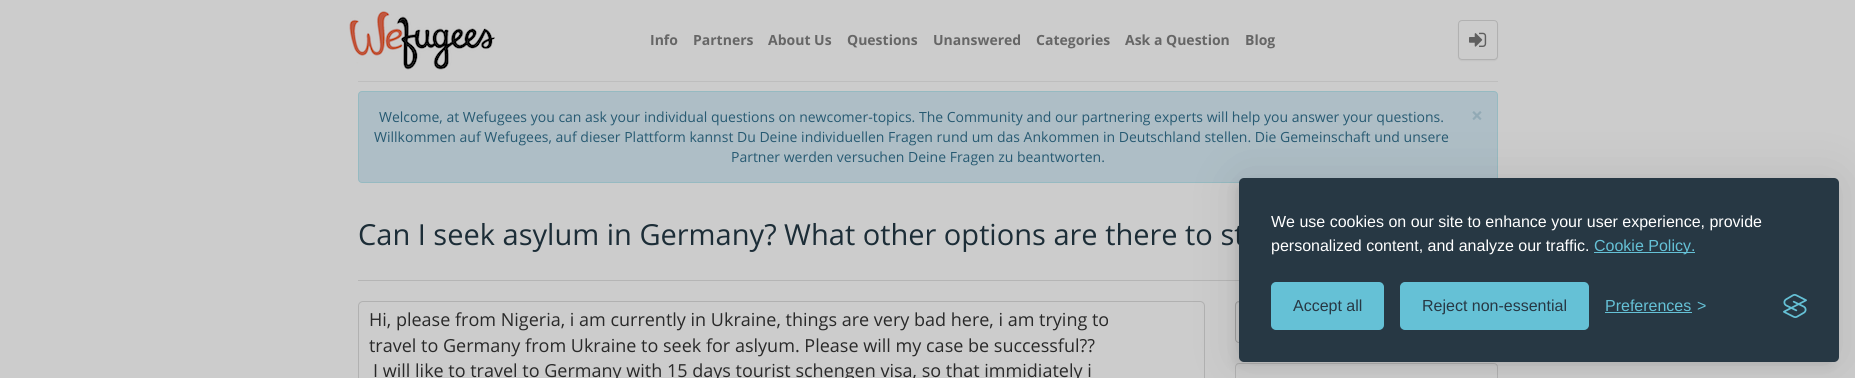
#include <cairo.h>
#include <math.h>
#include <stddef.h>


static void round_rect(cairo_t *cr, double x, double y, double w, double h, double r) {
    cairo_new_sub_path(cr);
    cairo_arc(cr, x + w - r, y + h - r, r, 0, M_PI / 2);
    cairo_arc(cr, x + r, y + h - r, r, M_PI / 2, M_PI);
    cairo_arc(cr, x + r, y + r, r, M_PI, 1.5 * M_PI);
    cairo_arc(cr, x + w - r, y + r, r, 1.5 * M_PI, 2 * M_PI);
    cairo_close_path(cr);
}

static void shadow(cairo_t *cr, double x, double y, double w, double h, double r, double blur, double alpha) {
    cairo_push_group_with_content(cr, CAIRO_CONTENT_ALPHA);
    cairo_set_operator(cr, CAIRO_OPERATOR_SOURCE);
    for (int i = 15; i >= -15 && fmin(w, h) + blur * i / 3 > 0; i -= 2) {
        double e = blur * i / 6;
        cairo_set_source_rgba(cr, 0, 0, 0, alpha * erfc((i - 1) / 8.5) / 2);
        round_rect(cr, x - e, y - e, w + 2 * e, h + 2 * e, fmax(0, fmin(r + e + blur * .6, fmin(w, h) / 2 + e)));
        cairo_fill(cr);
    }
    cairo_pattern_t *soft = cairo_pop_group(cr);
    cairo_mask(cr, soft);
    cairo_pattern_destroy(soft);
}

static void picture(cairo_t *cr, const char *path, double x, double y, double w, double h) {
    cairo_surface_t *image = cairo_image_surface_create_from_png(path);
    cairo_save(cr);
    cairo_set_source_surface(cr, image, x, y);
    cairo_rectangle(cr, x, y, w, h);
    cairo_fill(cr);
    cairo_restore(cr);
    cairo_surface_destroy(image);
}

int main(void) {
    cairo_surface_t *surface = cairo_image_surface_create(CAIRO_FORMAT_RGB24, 1855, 378);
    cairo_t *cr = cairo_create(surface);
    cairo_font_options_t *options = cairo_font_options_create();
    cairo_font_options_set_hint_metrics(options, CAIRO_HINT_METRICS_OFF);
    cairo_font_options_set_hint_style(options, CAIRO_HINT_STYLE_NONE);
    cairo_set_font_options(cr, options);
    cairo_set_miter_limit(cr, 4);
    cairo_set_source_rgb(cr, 0.8, 0.8, 0.8);
    cairo_paint(cr);
    picture(cr, "img1.png", 349, 11, 146, 59);
    cairo_select_font_face(cr, "Open Sans", CAIRO_FONT_SLANT_NORMAL, CAIRO_FONT_WEIGHT_BOLD);
    cairo_set_font_size(cr, 14);
    cairo_set_source_rgb(cr, 0.4, 0.4, 0.4);
    cairo_move_to(cr, 650, 45);
    cairo_show_text(cr, "Info");
    cairo_move_to(cr, 693, 45);
    cairo_show_text(cr, "Partners");
    cairo_move_to(cr, 768, 45);
    cairo_show_text(cr, "About Us");
    cairo_move_to(cr, 847, 45);
    cairo_show_text(cr, "Questions");
    cairo_move_to(cr, 933, 45);
    cairo_show_text(cr, "Unanswered");
    cairo_move_to(cr, 1036, 45);
    cairo_show_text(cr, "Categories");
    cairo_move_to(cr, 1125, 45);
    cairo_show_text(cr, "Ask a Question");
    cairo_move_to(cr, 1245, 45);
    cairo_show_text(cr, "Blog");
    cairo_set_source_rgb(cr, 0, 0, 0);
    shadow(cr, 1458, 21, 40, 40, 4, 0.5, 0.05);
    cairo_set_source_rgb(cr, 0.8, 0.8, 0.8);
    round_rect(cr, 1458.5, 20.5, 39, 39, 3.5);
    cairo_fill_preserve(cr);
    cairo_set_source_rgb(cr, 0.694, 0.694, 0.694);
    cairo_set_line_width(cr, 1);
    cairo_stroke(cr);
    picture(cr, "img2.png", 1469, 32, 18, 15);
    cairo_set_source_rgb(cr, 0.745, 0.745, 0.745);
    cairo_rectangle(cr, 358, 81, 1140, 1);
    cairo_fill(cr);
    cairo_set_source_rgb(cr, 0.682, 0.745, 0.776);
    round_rect(cr, 358.5, 91.5, 1139, 91, 3.5);
    cairo_fill_preserve(cr);
    cairo_set_source_rgb(cr, 0.588, 0.729, 0.757);
    cairo_stroke(cr);
    cairo_select_font_face(cr, "Open Sans", CAIRO_FONT_SLANT_NORMAL, CAIRO_FONT_WEIGHT_NORMAL);
    cairo_set_source_rgb(cr, 0.153, 0.353, 0.447);
    cairo_move_to(cr, 379, 122);
    cairo_show_text(cr, "Welcome, at Wefugees you can ask your individual questions on newcomer-topics. The Community and our partnering experts will help you answer your questions.");
    cairo_select_font_face(cr, "Open Sans", CAIRO_FONT_SLANT_NORMAL, CAIRO_FONT_WEIGHT_BOLD);
    cairo_set_font_size(cr, 21);
    cairo_set_source_rgb(cr, 0.573, 0.667, 0.71);
    cairo_move_to(cr, 1471, 123);
    cairo_show_text(cr, "×");
    cairo_select_font_face(cr, "Open Sans", CAIRO_FONT_SLANT_NORMAL, CAIRO_FONT_WEIGHT_NORMAL);
    cairo_set_font_size(cr, 14);
    cairo_set_source_rgb(cr, 0.153, 0.353, 0.447);
    cairo_move_to(cr, 374, 142);
    cairo_show_text(cr, "Willkommen auf Wefugees, auf dieser Plattform kannst Du Deine individuellen Fragen rund um das Ankommen in Deutschland stellen. Die Gemeinschaft und unsere");
    cairo_move_to(cr, 731, 162);
    cairo_show_text(cr, "Partner werden versuchen Deine Fragen zu beantworten.");
    cairo_set_source_rgb(cr, 0.71, 0.71, 0.71);
    cairo_rectangle(cr, 358, 280, 881, 1);
    cairo_fill(cr);
    cairo_set_font_size(cr, 29);
    cairo_set_source_rgb(cr, 0.11, 0.176, 0.216);
    cairo_move_to(cr, 358, 245);
    cairo_show_text(cr, "Can I seek asylum in Germany? What other options are there to st");
    round_rect(cr, 358.5, 301.5, 846, 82, 4.5);
    cairo_set_source_rgb(cr, 0.694, 0.694, 0.694);
    cairo_stroke(cr);
    cairo_set_source_rgb(cr, 0.741, 0.741, 0.741);
    cairo_new_path(cr);
    cairo_move_to(cr, 1239, 303);
    cairo_line_to(cr, 1495, 303);
    cairo_line_to(cr, 1497, 304);
    cairo_line_to(cr, 1497, 306);
    cairo_line_to(cr, 1497, 305);
    cairo_curve_to(cr, 1497, 303, 1496, 302, 1494, 302);
    cairo_line_to(cr, 1239, 302);
    cairo_curve_to(cr, 1237, 302, 1236, 303, 1236, 305);
    cairo_line_to(cr, 1236, 306);
    cairo_curve_to(cr, 1236, 304, 1237, 303, 1239, 303);
    cairo_close_path(cr);
    cairo_fill(cr);
    round_rect(cr, 1235.5, 301.5, 262, 41, 3.5);
    cairo_set_source_rgb(cr, 0.639, 0.639, 0.639);
    cairo_stroke(cr);
    round_rect(cr, 1235.5, 363.5, 262, 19, 3.5);
    cairo_set_source_rgb(cr, 0.694, 0.694, 0.694);
    cairo_stroke(cr);
    cairo_set_source_rgb(cr, 0, 0, 0);
    shadow(cr, 1239, 178, 600, 184, 5, 25, 0.1);
    shadow(cr, 1234, 183, 600, 184, 5, 5, 0.07);
    cairo_set_source_rgb(cr, 0.153, 0.22, 0.267);
    round_rect(cr, 1239, 178, 600, 184, 5);
    cairo_fill(cr);
    cairo_select_font_face(cr, "Liberation Sans", CAIRO_FONT_SLANT_NORMAL, CAIRO_FONT_WEIGHT_NORMAL);
    cairo_set_font_size(cr, 16);
    cairo_set_source_rgb(cr, 1, 1, 1);
    cairo_move_to(cr, 1271, 227);
    cairo_show_text(cr, "We use cookies on our site to enhance your user experience, provide");
    cairo_move_to(cr, 1271, 251);
    cairo_show_text(cr, "personalized content, and analyze our traffic.");
    cairo_set_source_rgb(cr, 0.396, 0.757, 0.839);
    cairo_rectangle(cr, 1594, 252, 101, 1);
    cairo_fill(cr);
    cairo_move_to(cr, 1594, 251);
    cairo_show_text(cr, "Cookie Policy.");
    round_rect(cr, 1272, 283, 111, 46, 4);
    cairo_fill_preserve(cr);
    cairo_set_line_width(cr, 2);
    cairo_stroke(cr);
    cairo_set_source_rgb(cr, 0.153, 0.22, 0.267);
    cairo_move_to(cr, 1293, 311);
    cairo_show_text(cr, "Accept all");
    cairo_set_source_rgb(cr, 0.396, 0.757, 0.839);
    round_rect(cr, 1401, 283, 187, 46, 4);
    cairo_fill_preserve(cr);
    cairo_stroke(cr);
    cairo_set_source_rgb(cr, 0.153, 0.22, 0.267);
    cairo_move_to(cr, 1422, 311);
    cairo_show_text(cr, "Reject non-essential");
    cairo_set_source_rgb(cr, 0.396, 0.757, 0.839);
    cairo_move_to(cr, 1605, 311);
    cairo_show_text(cr, "Preferences");
    cairo_rectangle(cr, 1605, 312, 87, 1);
    cairo_fill(cr);
    cairo_move_to(cr, 1697, 311);
    cairo_show_text(cr, ">");
    picture(cr, "img3.png", 1783, 294, 24, 24);
    cairo_select_font_face(cr, "Open Sans", CAIRO_FONT_SLANT_NORMAL, CAIRO_FONT_WEIGHT_NORMAL);
    cairo_set_font_size(cr, 18);
    cairo_set_source_rgb(cr, 0.161, 0.161, 0.161);
    cairo_move_to(cr, 369, 326);
    cairo_show_text(cr, "Hi, please from Nigeria, i am currently in Ukraine, things are very bad here, i am trying to");
    cairo_move_to(cr, 369, 352);
    cairo_show_text(cr, "travel to Germany from Ukraine to seek for aslyum. Please will my case be successful?\077");
    cairo_move_to(cr, 373, 377);
    cairo_show_text(cr, "I will like to travel to Germany with 15 days tourist schengen visa, so that immidiately i");
    cairo_surface_write_to_png(surface, "page.png");
    cairo_font_options_destroy(options);
    cairo_destroy(cr);
    cairo_surface_destroy(surface);
    return 0;
}
